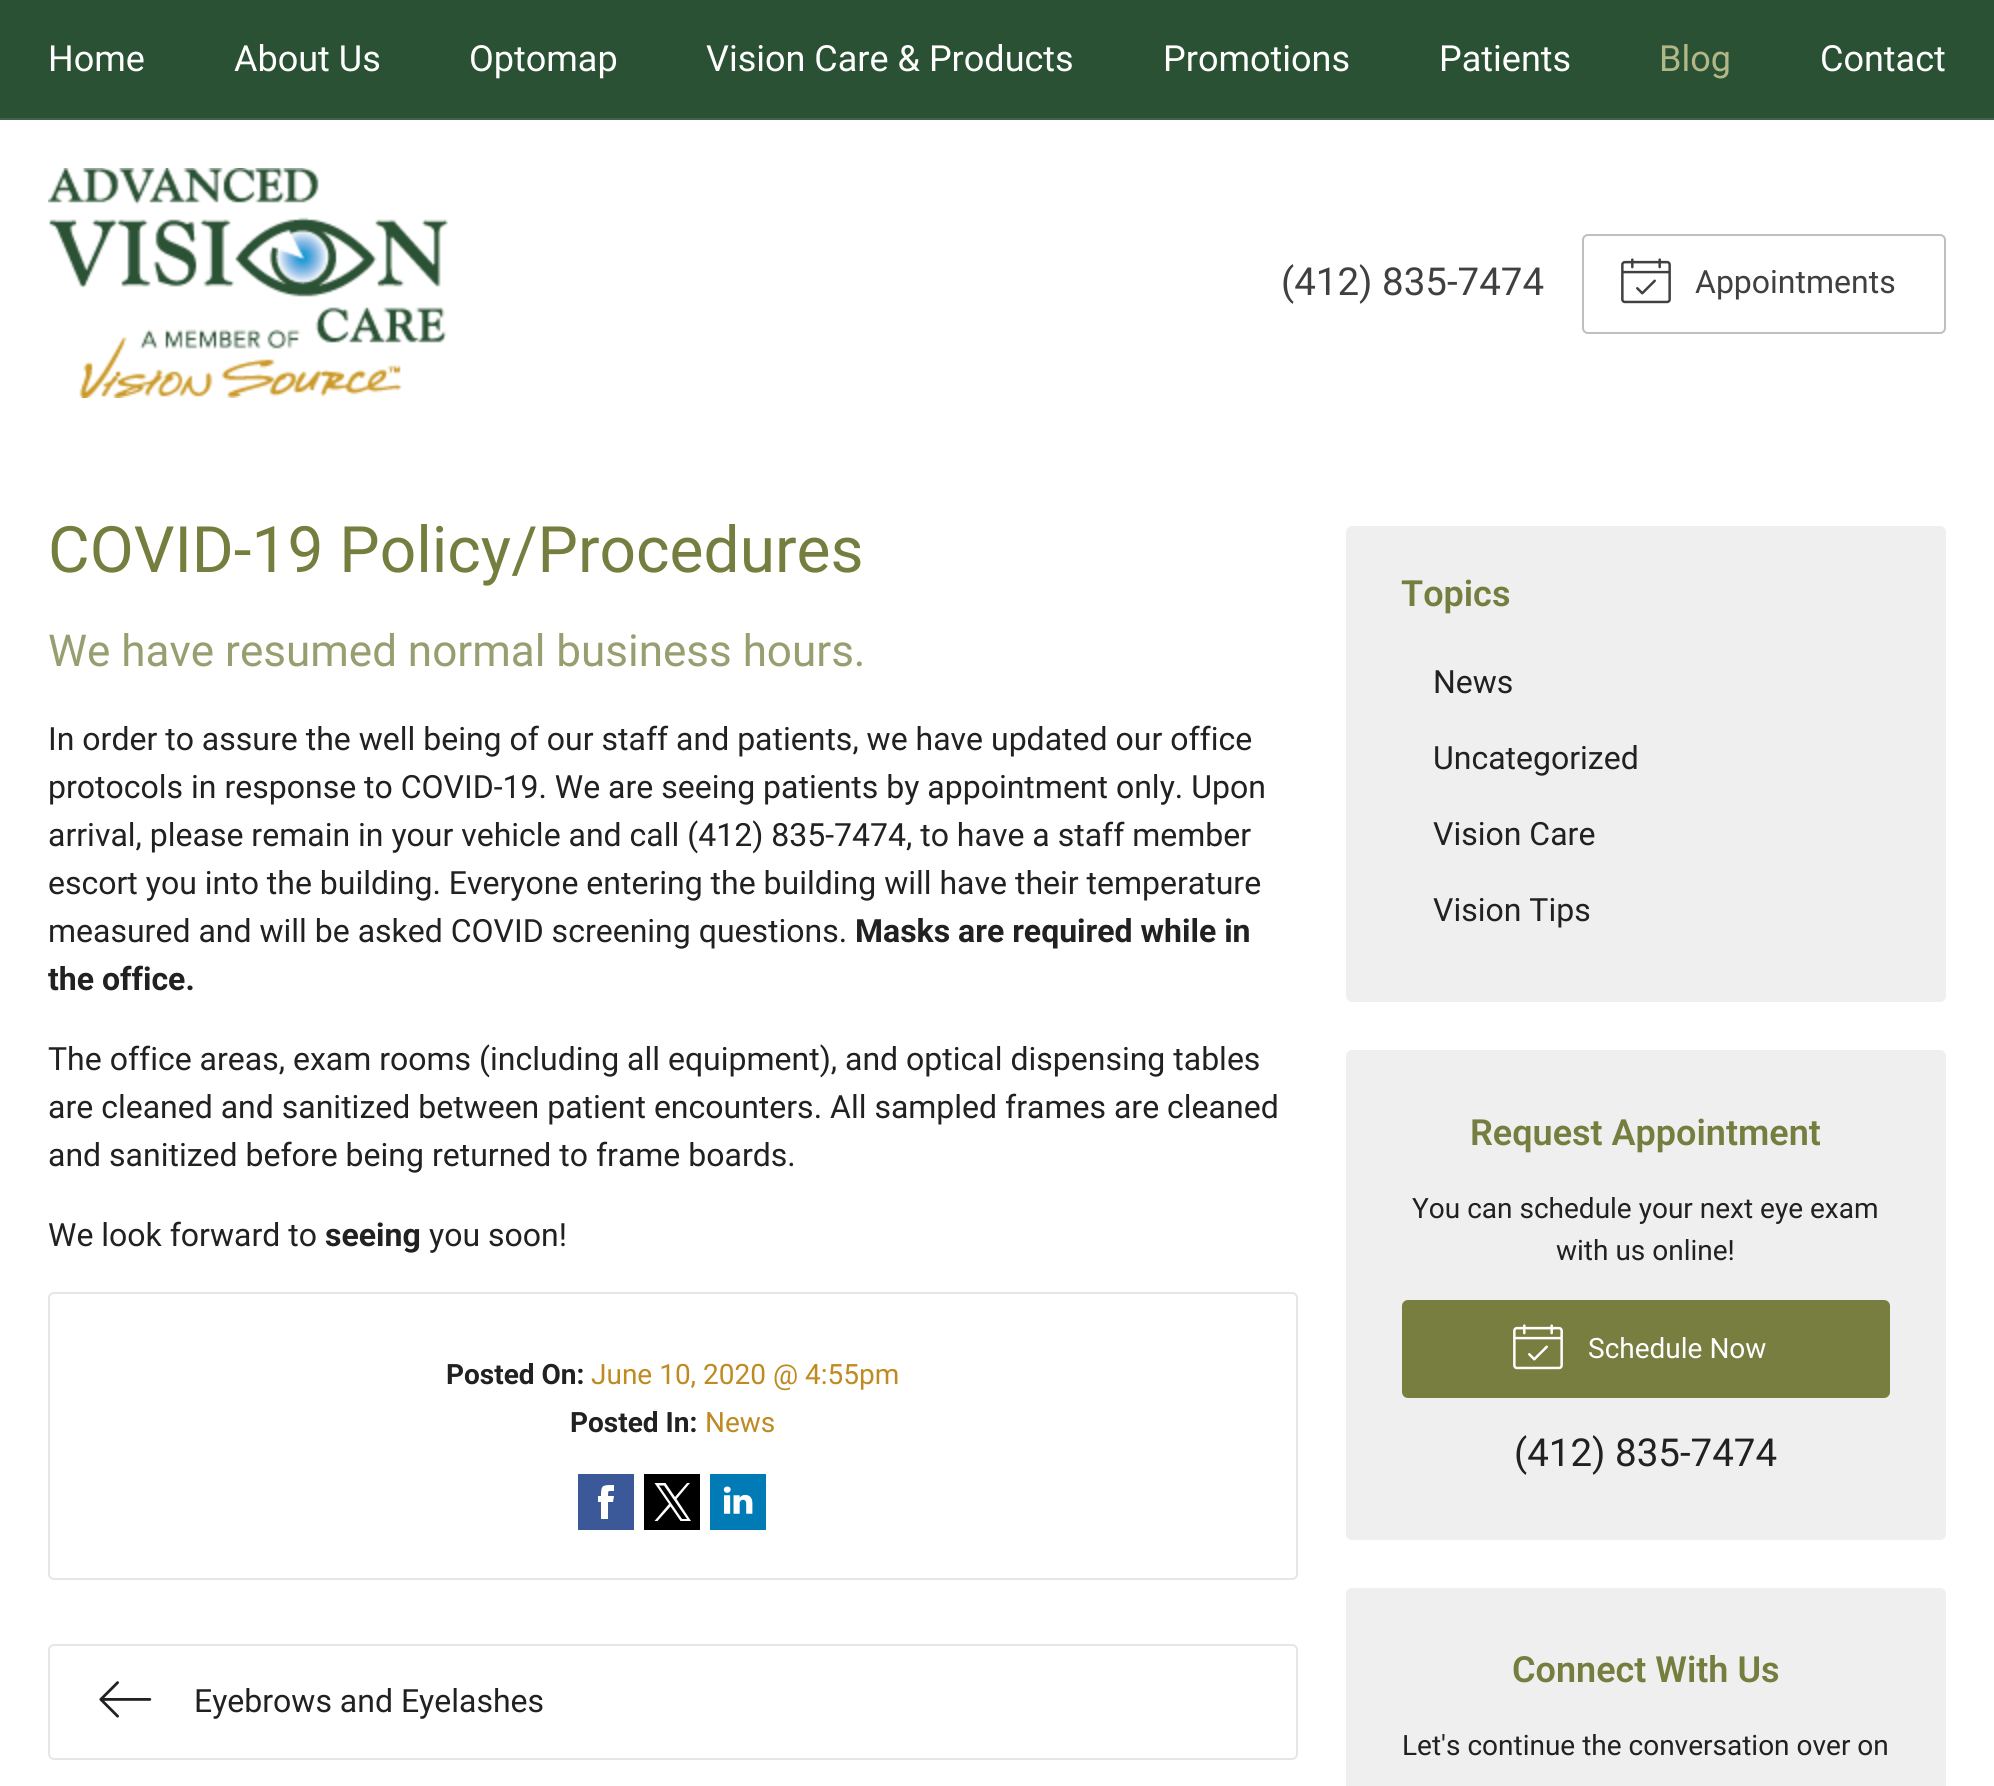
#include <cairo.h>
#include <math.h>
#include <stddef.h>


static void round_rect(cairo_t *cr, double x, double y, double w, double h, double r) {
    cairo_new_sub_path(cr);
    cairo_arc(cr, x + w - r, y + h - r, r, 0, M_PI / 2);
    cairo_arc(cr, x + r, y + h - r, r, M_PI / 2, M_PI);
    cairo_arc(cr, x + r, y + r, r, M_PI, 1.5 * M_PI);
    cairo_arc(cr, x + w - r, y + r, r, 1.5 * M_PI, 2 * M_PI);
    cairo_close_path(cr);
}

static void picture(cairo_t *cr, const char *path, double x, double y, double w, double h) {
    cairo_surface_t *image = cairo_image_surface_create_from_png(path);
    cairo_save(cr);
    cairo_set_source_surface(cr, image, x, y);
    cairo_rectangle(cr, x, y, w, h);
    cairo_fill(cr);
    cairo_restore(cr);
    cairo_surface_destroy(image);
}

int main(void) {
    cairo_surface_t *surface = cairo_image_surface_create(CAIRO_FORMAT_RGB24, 1994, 1786);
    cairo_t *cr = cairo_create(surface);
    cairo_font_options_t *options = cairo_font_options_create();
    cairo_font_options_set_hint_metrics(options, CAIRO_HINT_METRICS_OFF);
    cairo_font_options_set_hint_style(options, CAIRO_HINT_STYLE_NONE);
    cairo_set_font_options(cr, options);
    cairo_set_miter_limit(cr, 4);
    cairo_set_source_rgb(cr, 0.169, 0.318, 0.204);
    cairo_paint(cr);
    cairo_set_source_rgb(cr, 0.251, 0.384, 0.282);
    cairo_rectangle(cr, 0, 118, 1994, 2);
    cairo_fill(cr);
    cairo_select_font_face(cr, "Roboto", CAIRO_FONT_SLANT_NORMAL, CAIRO_FONT_WEIGHT_NORMAL);
    cairo_set_font_size(cr, 36);
    cairo_set_source_rgb(cr, 1, 1, 1);
    cairo_move_to(cr, 48, 71);
    cairo_show_text(cr, "Home");
    cairo_move_to(cr, 234, 71);
    cairo_show_text(cr, "About Us");
    cairo_move_to(cr, 469, 71);
    cairo_show_text(cr, "Optomap");
    cairo_move_to(cr, 706, 71);
    cairo_show_text(cr, "Vision Care & Products");
    cairo_move_to(cr, 1163, 71);
    cairo_show_text(cr, "Promotions");
    cairo_move_to(cr, 1439, 71);
    cairo_show_text(cr, "Patients");
    cairo_set_source_rgb(cr, 0.694, 0.718, 0.525);
    cairo_move_to(cr, 1659, 71);
    cairo_show_text(cr, "Blog");
    cairo_set_source_rgb(cr, 1, 1, 1);
    cairo_move_to(cr, 1820, 71);
    cairo_show_text(cr, "Contact");
    cairo_rectangle(cr, 0, 120, 1994, 1666);
    cairo_fill(cr);
    picture(cr, "img1.png", 48, 168, 400, 230);
    cairo_set_font_size(cr, 38.5);
    cairo_set_source_rgb(cr, 0.251, 0.251, 0.251);
    cairo_move_to(cr, 1281, 295);
    cairo_show_text(cr, "(412) 835-7474");
    round_rect(cr, 1583, 235, 362, 98, 5);
    cairo_set_source_rgb(cr, 0.749, 0.749, 0.749);
    cairo_stroke(cr);
    picture(cr, "img2.png", 1621, 258, 50, 46);
    cairo_set_font_size(cr, 32);
    cairo_set_source_rgb(cr, 0.251, 0.251, 0.251);
    cairo_move_to(cr, 1695, 293);
    cairo_show_text(cr, "Appointments");
    cairo_set_font_size(cr, 64);
    cairo_set_source_rgb(cr, 0.463, 0.494, 0.247);
    cairo_move_to(cr, 48, 572);
    cairo_show_text(cr, "COVID-19 Policy/Procedures");
    cairo_set_font_size(cr, 44);
    cairo_set_source_rgb(cr, 0.596, 0.62, 0.435);
    cairo_move_to(cr, 48, 666);
    cairo_show_text(cr, "We have resumed normal business hours.");
    cairo_set_font_size(cr, 32);
    cairo_set_source_rgb(cr, 0.129, 0.129, 0.129);
    cairo_move_to(cr, 48, 750);
    cairo_show_text(cr, "In order to assure the well being of our staff and patients, we have updated our office");
    cairo_move_to(cr, 48, 798);
    cairo_show_text(cr, "protocols in response to COVID-19. We are seeing patients by appointment only. Upon");
    cairo_move_to(cr, 48, 846);
    cairo_show_text(cr, "arrival, please remain in your vehicle and call (412) 835-7474, to have a staff member");
    cairo_move_to(cr, 48, 894);
    cairo_show_text(cr, "escort you into the building. Everyone entering the building will have their temperature");
    cairo_move_to(cr, 48, 942);
    cairo_show_text(cr, "measured and will be asked COVID screening questions.");
    cairo_select_font_face(cr, "Roboto", CAIRO_FONT_SLANT_NORMAL, CAIRO_FONT_WEIGHT_BOLD);
    cairo_move_to(cr, 855, 942);
    cairo_show_text(cr, "Masks are required while in");
    cairo_move_to(cr, 48, 990);
    cairo_show_text(cr, "the office.");
    cairo_select_font_face(cr, "Roboto", CAIRO_FONT_SLANT_NORMAL, CAIRO_FONT_WEIGHT_NORMAL);
    cairo_move_to(cr, 48, 1070);
    cairo_show_text(cr, "The office areas, exam rooms (including all equipment), and optical dispensing tables");
    cairo_move_to(cr, 48, 1118);
    cairo_show_text(cr, "are cleaned and sanitized between patient encounters. All sampled frames are cleaned");
    cairo_move_to(cr, 48, 1166);
    cairo_show_text(cr, "and sanitized before being returned to frame boards.");
    cairo_move_to(cr, 48, 1246);
    cairo_show_text(cr, "We look forward to");
    cairo_select_font_face(cr, "Roboto", CAIRO_FONT_SLANT_NORMAL, CAIRO_FONT_WEIGHT_BOLD);
    cairo_move_to(cr, 325, 1246);
    cairo_show_text(cr, "seeing");
    cairo_select_font_face(cr, "Roboto", CAIRO_FONT_SLANT_NORMAL, CAIRO_FONT_WEIGHT_NORMAL);
    cairo_move_to(cr, 429, 1246);
    cairo_show_text(cr, "you soon!");
    round_rect(cr, 49, 1293, 1248, 286, 5);
    cairo_set_source_rgb(cr, 0.902, 0.902, 0.902);
    cairo_stroke(cr);
    cairo_select_font_face(cr, "Roboto", CAIRO_FONT_SLANT_NORMAL, CAIRO_FONT_WEIGHT_BOLD);
    cairo_set_font_size(cr, 28);
    cairo_set_source_rgb(cr, 0.129, 0.129, 0.129);
    cairo_move_to(cr, 446, 1384);
    cairo_show_text(cr, "Posted On:");
    cairo_select_font_face(cr, "Roboto", CAIRO_FONT_SLANT_NORMAL, CAIRO_FONT_WEIGHT_NORMAL);
    cairo_set_source_rgb(cr, 0.749, 0.541, 0.133);
    cairo_move_to(cr, 591, 1384);
    cairo_show_text(cr, "June 10, 2020 @ 4:55pm");
    cairo_select_font_face(cr, "Roboto", CAIRO_FONT_SLANT_NORMAL, CAIRO_FONT_WEIGHT_BOLD);
    cairo_set_source_rgb(cr, 0.129, 0.129, 0.129);
    cairo_move_to(cr, 570, 1432);
    cairo_show_text(cr, "Posted In:");
    cairo_select_font_face(cr, "Roboto", CAIRO_FONT_SLANT_NORMAL, CAIRO_FONT_WEIGHT_NORMAL);
    cairo_set_source_rgb(cr, 0.749, 0.541, 0.133);
    cairo_move_to(cr, 705, 1432);
    cairo_show_text(cr, "News");
    cairo_set_source_rgb(cr, 0.231, 0.349, 0.596);
    cairo_new_path(cr);
    cairo_move_to(cr, 578, 1530);
    cairo_line_to(cr, 634, 1530);
    cairo_line_to(cr, 634, 1474);
    cairo_line_to(cr, 578, 1474);
    cairo_close_path(cr);
    cairo_move_to(cr, 598, 1496);
    cairo_line_to(cr, 601, 1496);
    cairo_curve_to(cr, 601, 1485, 602, 1485, 614, 1485);
    cairo_line_to(cr, 614, 1491);
    cairo_curve_to(cr, 608, 1491, 608, 1490, 608, 1496);
    cairo_line_to(cr, 614, 1496);
    cairo_line_to(cr, 613, 1502);
    cairo_line_to(cr, 608, 1502);
    cairo_line_to(cr, 608, 1519);
    cairo_line_to(cr, 601, 1519);
    cairo_line_to(cr, 601, 1502);
    cairo_line_to(cr, 598, 1502);
    cairo_close_path(cr);
    cairo_fill(cr);
    cairo_set_source_rgb(cr, 0, 0, 0);
    cairo_rectangle(cr, 644, 1474, 56, 56);
    cairo_fill(cr);
    cairo_set_source_rgb(cr, 1, 1, 1);
    cairo_new_path(cr);
    cairo_move_to(cr, 676.5, 1499);
    cairo_line_to(cr, 690, 1483);
    cairo_line_to(cr, 687, 1483);
    cairo_line_to(cr, 675, 1497);
    cairo_line_to(cr, 665.5, 1483);
    cairo_line_to(cr, 654.5, 1483);
    cairo_line_to(cr, 669, 1504);
    cairo_line_to(cr, 654.5, 1521);
    cairo_line_to(cr, 657.5, 1521);
    cairo_line_to(cr, 670.5, 1506.5);
    cairo_line_to(cr, 680.5, 1521);
    cairo_line_to(cr, 691, 1521);
    cairo_close_path(cr);
    cairo_move_to(cr, 672, 1504.5);
    cairo_line_to(cr, 659, 1485.5);
    cairo_line_to(cr, 664, 1485.5);
    cairo_line_to(cr, 687, 1519);
    cairo_line_to(cr, 682, 1519);
    cairo_close_path(cr);
    cairo_fill(cr);
    picture(cr, "img3.png", 710, 1474, 56, 56);
    round_rect(cr, 49, 1645, 1248, 114, 5);
    cairo_set_source_rgb(cr, 0.902, 0.902, 0.902);
    cairo_stroke(cr);
    picture(cr, "img4.png", 99, 1681, 53, 37);
    cairo_set_font_size(cr, 32);
    cairo_set_source_rgb(cr, 0.129, 0.129, 0.129);
    cairo_move_to(cr, 194, 1712);
    cairo_show_text(cr, "Eyebrows and Eyelashes");
    cairo_set_source_rgb(cr, 0.937, 0.937, 0.937);
    round_rect(cr, 1346, 526, 600, 476, 6);
    cairo_fill(cr);
    cairo_select_font_face(cr, "Roboto SemiBold", CAIRO_FONT_SLANT_NORMAL, CAIRO_FONT_WEIGHT_NORMAL);
    cairo_set_font_size(cr, 36);
    cairo_set_source_rgb(cr, 0.463, 0.494, 0.247);
    cairo_move_to(cr, 1401, 606);
    cairo_show_text(cr, "Topics");
    cairo_select_font_face(cr, "Roboto", CAIRO_FONT_SLANT_NORMAL, CAIRO_FONT_WEIGHT_NORMAL);
    cairo_set_font_size(cr, 32);
    cairo_set_source_rgb(cr, 0.129, 0.129, 0.129);
    cairo_move_to(cr, 1433, 693);
    cairo_show_text(cr, "News");
    cairo_move_to(cr, 1433, 769);
    cairo_show_text(cr, "Uncategorized");
    cairo_move_to(cr, 1433, 845);
    cairo_show_text(cr, "Vision Care");
    cairo_move_to(cr, 1433, 921);
    cairo_show_text(cr, "Vision Tips");
    cairo_set_source_rgb(cr, 0.937, 0.937, 0.937);
    round_rect(cr, 1346, 1050, 600, 490, 6);
    cairo_fill(cr);
    cairo_select_font_face(cr, "Roboto SemiBold", CAIRO_FONT_SLANT_NORMAL, CAIRO_FONT_WEIGHT_NORMAL);
    cairo_set_font_size(cr, 36);
    cairo_set_source_rgb(cr, 0.463, 0.494, 0.247);
    cairo_move_to(cr, 1470, 1145);
    cairo_show_text(cr, "Request Appointment");
    cairo_select_font_face(cr, "Roboto", CAIRO_FONT_SLANT_NORMAL, CAIRO_FONT_WEIGHT_NORMAL);
    cairo_set_font_size(cr, 28);
    cairo_set_source_rgb(cr, 0.129, 0.129, 0.129);
    cairo_move_to(cr, 1412, 1218);
    cairo_show_text(cr, "You can schedule your next eye exam");
    cairo_move_to(cr, 1556, 1260);
    cairo_show_text(cr, "with us online!");
    cairo_set_source_rgb(cr, 0.467, 0.494, 0.247);
    round_rect(cr, 1402, 1300, 488, 98, 6);
    cairo_fill(cr);
    picture(cr, "img5.png", 1513, 1324, 50, 46);
    cairo_set_source_rgb(cr, 1, 1, 1);
    cairo_move_to(cr, 1588, 1358);
    cairo_show_text(cr, "Schedule Now");
    cairo_set_font_size(cr, 38.5);
    cairo_set_source_rgb(cr, 0.129, 0.129, 0.129);
    cairo_move_to(cr, 1514, 1466);
    cairo_show_text(cr, "(412) 835-7474");
    cairo_set_source_rgb(cr, 0.937, 0.937, 0.937);
    round_rect(cr, 1346, 1588, 600, 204, 6);
    cairo_fill(cr);
    cairo_select_font_face(cr, "Roboto SemiBold", CAIRO_FONT_SLANT_NORMAL, CAIRO_FONT_WEIGHT_NORMAL);
    cairo_set_font_size(cr, 36);
    cairo_set_source_rgb(cr, 0.463, 0.494, 0.247);
    cairo_move_to(cr, 1512, 1682);
    cairo_show_text(cr, "Connect With Us");
    cairo_select_font_face(cr, "Roboto", CAIRO_FONT_SLANT_NORMAL, CAIRO_FONT_WEIGHT_NORMAL);
    cairo_set_font_size(cr, 28);
    cairo_set_source_rgb(cr, 0.129, 0.129, 0.129);
    cairo_move_to(cr, 1402, 1755);
    cairo_show_text(cr, "Let's continue the conversation over on");
    cairo_surface_write_to_png(surface, "page.png");
    cairo_font_options_destroy(options);
    cairo_destroy(cr);
    cairo_surface_destroy(surface);
    return 0;
}
